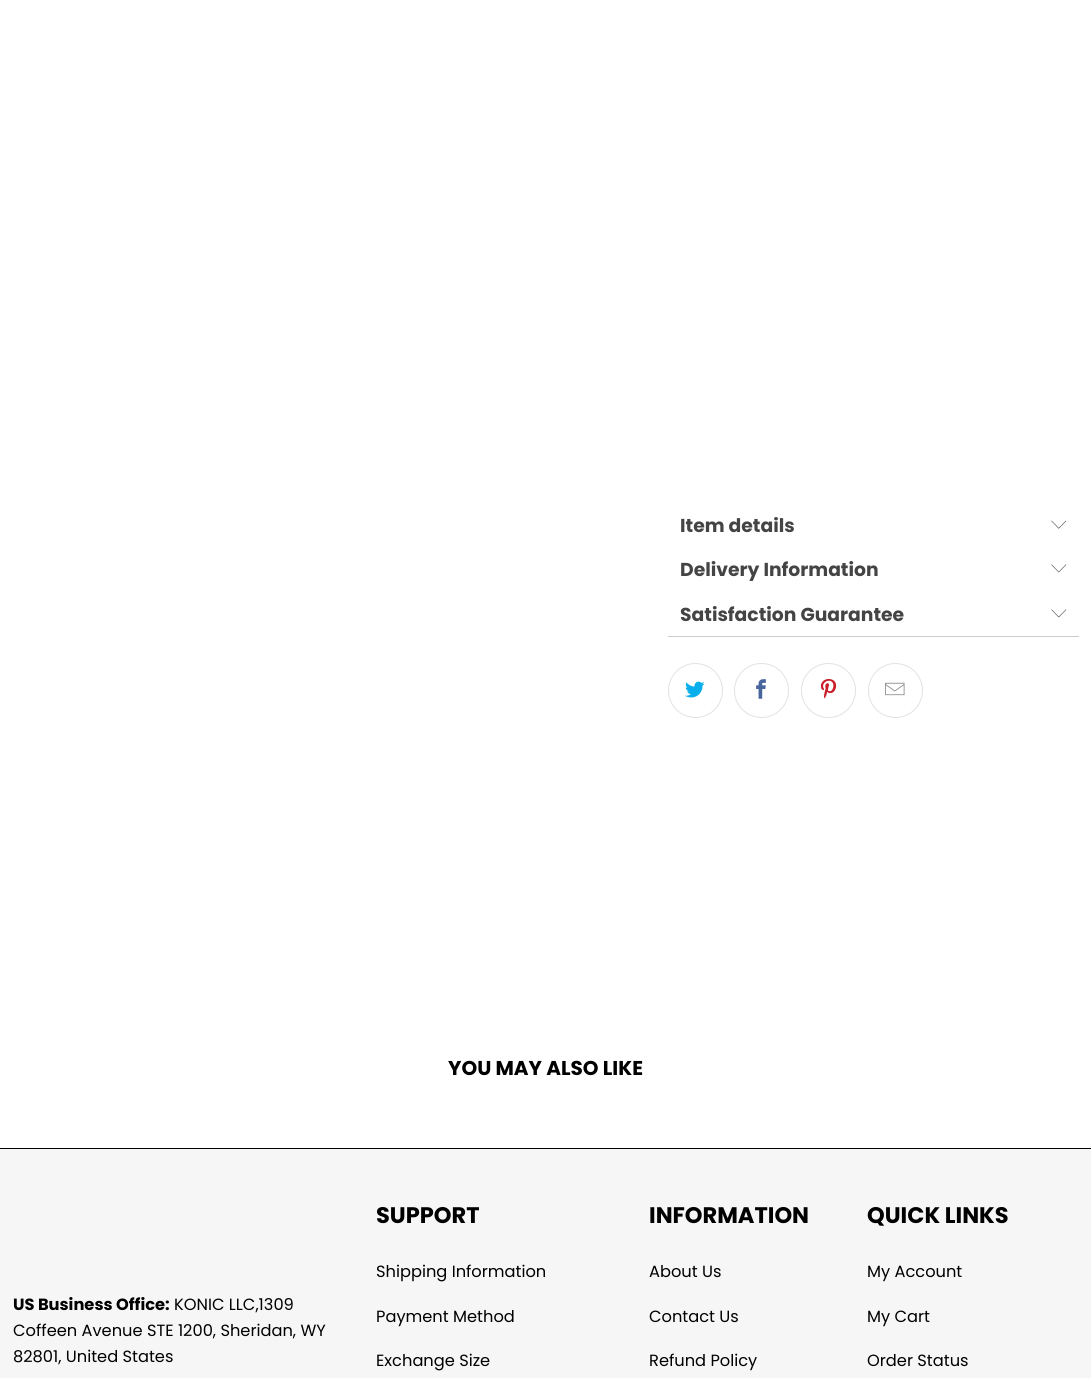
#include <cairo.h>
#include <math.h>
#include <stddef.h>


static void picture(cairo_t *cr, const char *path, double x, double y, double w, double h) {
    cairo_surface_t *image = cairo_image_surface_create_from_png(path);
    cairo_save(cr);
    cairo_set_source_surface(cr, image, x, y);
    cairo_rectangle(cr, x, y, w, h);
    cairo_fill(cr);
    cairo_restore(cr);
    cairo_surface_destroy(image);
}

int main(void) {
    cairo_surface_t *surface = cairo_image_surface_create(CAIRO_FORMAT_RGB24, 1091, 1378);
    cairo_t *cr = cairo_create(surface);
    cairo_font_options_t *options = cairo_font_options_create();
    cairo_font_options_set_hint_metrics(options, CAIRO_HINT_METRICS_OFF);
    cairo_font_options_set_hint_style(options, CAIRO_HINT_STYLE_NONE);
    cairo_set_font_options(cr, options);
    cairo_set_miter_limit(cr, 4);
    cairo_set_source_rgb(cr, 1, 1, 1);
    cairo_paint(cr);
    cairo_select_font_face(cr, "Poppins", CAIRO_FONT_SLANT_NORMAL, CAIRO_FONT_WEIGHT_BOLD);
    cairo_set_font_size(cr, 18.75);
    cairo_set_source_rgb(cr, 0.267, 0.267, 0.267);
    cairo_move_to(cr, 680, 532);
    cairo_show_text(cr, "Item details");
    picture(cr, "img1.png", 1051, 520, 16, 9);
    cairo_move_to(cr, 680, 576);
    cairo_show_text(cr, "Delivery Information");
    picture(cr, "img2.png", 1051, 564, 16, 9);
    cairo_move_to(cr, 680, 621);
    cairo_show_text(cr, "Satisfaction Guarantee");
    picture(cr, "img2.png", 1051, 609, 16, 9);
    cairo_set_source_rgb(cr, 0.8, 0.8, 0.8);
    cairo_rectangle(cr, 668, 636, 411, 1);
    cairo_fill(cr);
    cairo_arc(cr, 695.5, 690.5, 27, 0, 2 * M_PI);
    cairo_set_source_rgb(cr, 0.886, 0.886, 0.886);
    cairo_set_line_width(cr, 1);
    cairo_stroke(cr);
    picture(cr, "img3.png", 685, 681, 20, 17);
    cairo_arc(cr, 761.5, 690.5, 27, 0, 2 * M_PI);
    cairo_stroke(cr);
    picture(cr, "img4.png", 756, 679, 10, 20);
    cairo_arc(cr, 828.5, 690.5, 27, 0, 2 * M_PI);
    cairo_stroke(cr);
    picture(cr, "img5.png", 820, 679, 17, 20);
    cairo_arc(cr, 895.5, 690.5, 27, 0, 2 * M_PI);
    cairo_stroke(cr);
    picture(cr, "img6.png", 885, 682, 20, 14);
    cairo_set_font_size(cr, 20);
    cairo_set_source_rgb(cr, 0, 0, 0);
    cairo_move_to(cr, 448, 1075);
    cairo_show_text(cr, "YOU MAY ALSO LIKE");
    cairo_set_source_rgb(cr, 0.961, 0.961, 0.961);
    cairo_rectangle(cr, 0, 1149, 1091, 229);
    cairo_fill(cr);
    cairo_set_source_rgb(cr, 0, 0, 0);
    cairo_rectangle(cr, 0, 1148, 1091, 1);
    cairo_fill(cr);
    cairo_set_font_size(cr, 16.25);
    cairo_move_to(cr, 13, 1310);
    cairo_show_text(cr, "US Business Office:");
    cairo_select_font_face(cr, "Poppins", CAIRO_FONT_SLANT_NORMAL, CAIRO_FONT_WEIGHT_NORMAL);
    cairo_move_to(cr, 174, 1310);
    cairo_show_text(cr, "KONIC LLC,1309");
    cairo_move_to(cr, 13, 1336);
    cairo_show_text(cr, "Coffeen Avenue STE 1200, Sheridan, WY");
    cairo_move_to(cr, 13, 1362);
    cairo_show_text(cr, "82801, United States");
    cairo_select_font_face(cr, "Poppins", CAIRO_FONT_SLANT_NORMAL, CAIRO_FONT_WEIGHT_BOLD);
    cairo_set_font_size(cr, 22.5);
    cairo_move_to(cr, 376, 1223);
    cairo_show_text(cr, "SUPPORT");
    cairo_select_font_face(cr, "Poppins", CAIRO_FONT_SLANT_NORMAL, CAIRO_FONT_WEIGHT_NORMAL);
    cairo_set_font_size(cr, 16.25);
    cairo_move_to(cr, 376, 1277);
    cairo_show_text(cr, "Shipping Information");
    cairo_move_to(cr, 376, 1322);
    cairo_show_text(cr, "Payment Method");
    cairo_move_to(cr, 376, 1366);
    cairo_show_text(cr, "Exchange Size");
    cairo_select_font_face(cr, "Poppins", CAIRO_FONT_SLANT_NORMAL, CAIRO_FONT_WEIGHT_BOLD);
    cairo_set_font_size(cr, 22.5);
    cairo_move_to(cr, 649, 1223);
    cairo_show_text(cr, "INFORMATION");
    cairo_select_font_face(cr, "Poppins", CAIRO_FONT_SLANT_NORMAL, CAIRO_FONT_WEIGHT_NORMAL);
    cairo_set_font_size(cr, 16.25);
    cairo_move_to(cr, 649, 1277);
    cairo_show_text(cr, "About Us");
    cairo_move_to(cr, 649, 1322);
    cairo_show_text(cr, "Contact Us");
    cairo_move_to(cr, 649, 1366);
    cairo_show_text(cr, "Refund Policy");
    cairo_select_font_face(cr, "Poppins", CAIRO_FONT_SLANT_NORMAL, CAIRO_FONT_WEIGHT_BOLD);
    cairo_set_font_size(cr, 22.5);
    cairo_move_to(cr, 867, 1223);
    cairo_show_text(cr, "QUICK LINKS");
    cairo_select_font_face(cr, "Poppins", CAIRO_FONT_SLANT_NORMAL, CAIRO_FONT_WEIGHT_NORMAL);
    cairo_set_font_size(cr, 16.25);
    cairo_move_to(cr, 867, 1277);
    cairo_show_text(cr, "My Account");
    cairo_move_to(cr, 867, 1322);
    cairo_show_text(cr, "My Cart");
    cairo_move_to(cr, 867, 1366);
    cairo_show_text(cr, "Order Status");
    cairo_surface_write_to_png(surface, "page.png");
    cairo_font_options_destroy(options);
    cairo_destroy(cr);
    cairo_surface_destroy(surface);
    return 0;
}
